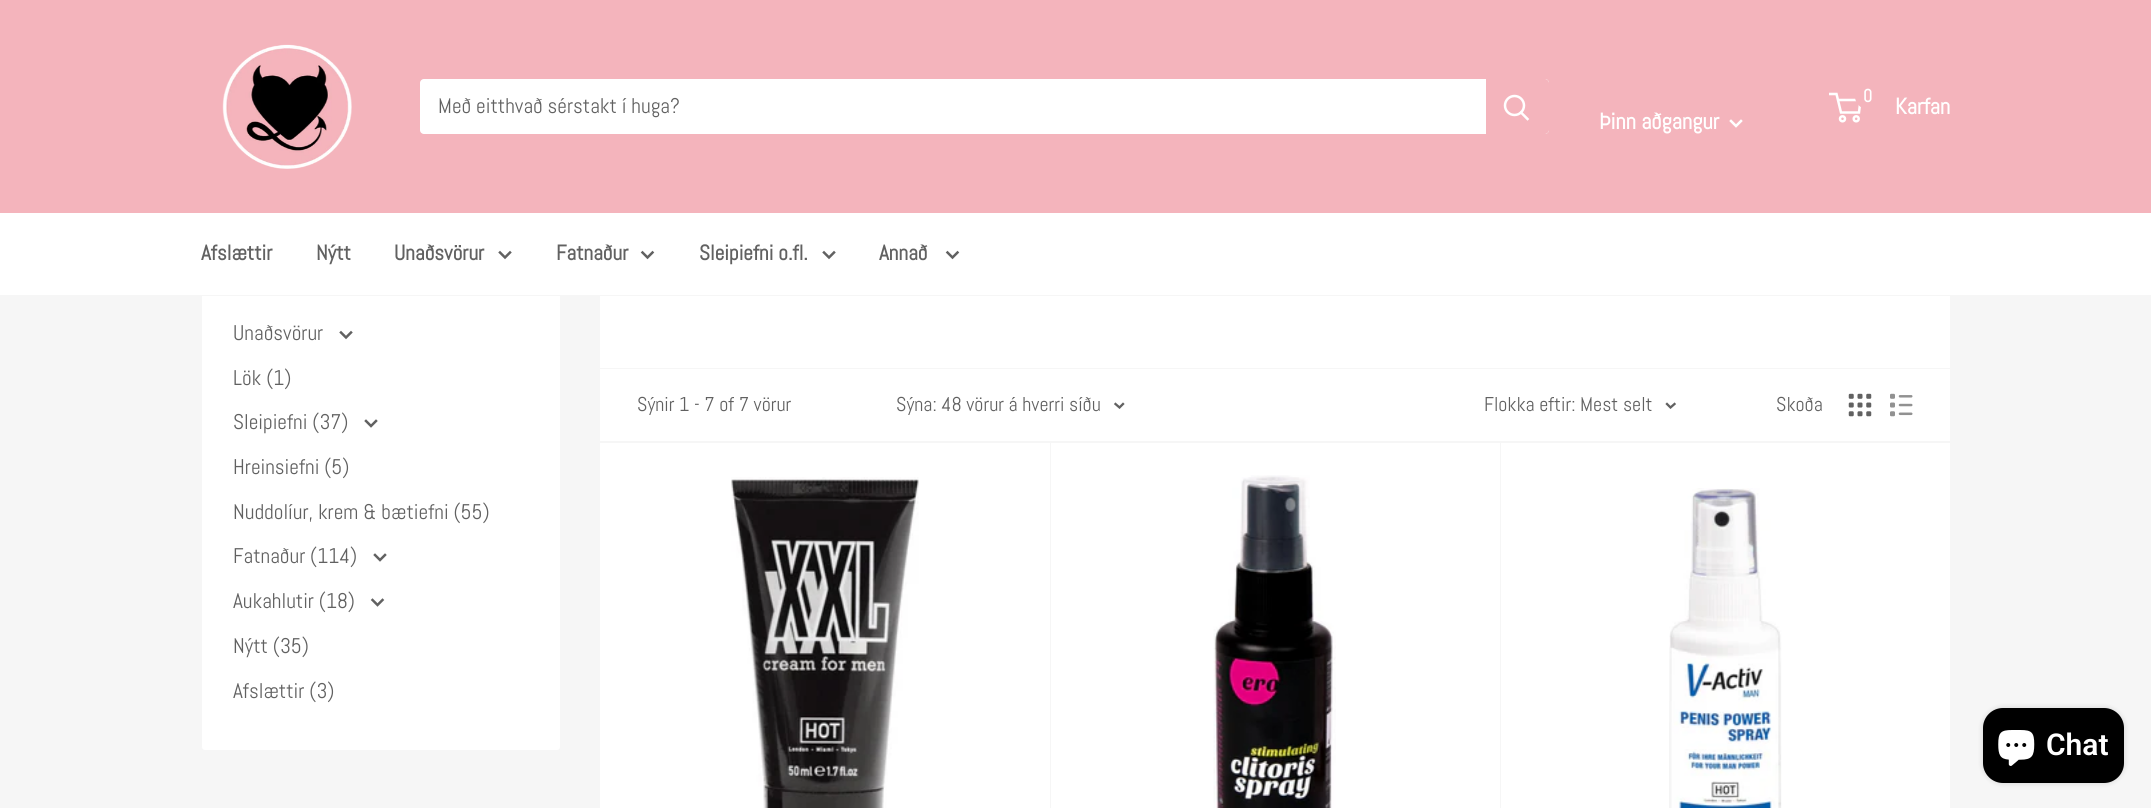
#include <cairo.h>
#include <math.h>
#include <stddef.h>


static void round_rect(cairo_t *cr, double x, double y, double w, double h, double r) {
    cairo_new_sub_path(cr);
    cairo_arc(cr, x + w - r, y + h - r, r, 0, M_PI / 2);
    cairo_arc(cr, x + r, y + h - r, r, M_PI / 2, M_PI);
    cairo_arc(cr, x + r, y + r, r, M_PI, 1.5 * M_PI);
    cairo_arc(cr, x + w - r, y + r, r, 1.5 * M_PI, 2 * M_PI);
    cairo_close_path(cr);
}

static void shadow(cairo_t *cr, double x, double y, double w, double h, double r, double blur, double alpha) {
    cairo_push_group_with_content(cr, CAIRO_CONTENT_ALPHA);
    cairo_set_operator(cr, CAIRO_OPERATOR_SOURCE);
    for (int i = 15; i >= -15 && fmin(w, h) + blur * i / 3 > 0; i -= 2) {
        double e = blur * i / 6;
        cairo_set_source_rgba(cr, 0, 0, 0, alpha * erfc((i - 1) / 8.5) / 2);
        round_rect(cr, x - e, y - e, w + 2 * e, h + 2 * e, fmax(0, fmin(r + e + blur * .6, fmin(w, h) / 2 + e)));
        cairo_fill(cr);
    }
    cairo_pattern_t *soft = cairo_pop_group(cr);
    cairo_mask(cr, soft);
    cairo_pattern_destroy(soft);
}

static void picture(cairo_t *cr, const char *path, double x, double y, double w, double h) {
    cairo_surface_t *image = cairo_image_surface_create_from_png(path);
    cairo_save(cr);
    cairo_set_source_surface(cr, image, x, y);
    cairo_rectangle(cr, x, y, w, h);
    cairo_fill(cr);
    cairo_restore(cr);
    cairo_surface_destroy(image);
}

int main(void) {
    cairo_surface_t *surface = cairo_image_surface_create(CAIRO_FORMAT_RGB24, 2151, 808);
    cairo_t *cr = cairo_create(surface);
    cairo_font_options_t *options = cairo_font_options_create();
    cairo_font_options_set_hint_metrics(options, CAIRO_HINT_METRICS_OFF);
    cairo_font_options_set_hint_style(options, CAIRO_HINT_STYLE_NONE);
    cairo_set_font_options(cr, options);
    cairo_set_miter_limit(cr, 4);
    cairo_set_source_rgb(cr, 0.961, 0.961, 0.961);
    cairo_paint(cr);
    cairo_set_source_rgb(cr, 0.957, 0.706, 0.737);
    cairo_rectangle(cr, 0, 0, 2151, 213);
    cairo_fill(cr);
    picture(cr, "img1.png", 222, 44, 130, 125);
    cairo_set_source_rgb(cr, 1, 1, 1);
    round_rect(cr, 420, 79, 1129, 55, 4);
    cairo_fill(cr);
    cairo_select_font_face(cr, "Abel", CAIRO_FONT_SLANT_NORMAL, CAIRO_FONT_WEIGHT_NORMAL);
    cairo_set_font_size(cr, 21.25);
    cairo_set_source_rgb(cr, 0.38, 0.38, 0.38);
    cairo_move_to(cr, 438, 113);
    cairo_show_text(cr, "Með eitthvað sérstakt í huga?");
    cairo_set_source_rgb(cr, 0.957, 0.706, 0.737);
    cairo_new_path(cr);
    cairo_move_to(cr, 1486, 79);
    cairo_line_to(cr, 1545, 79);
    cairo_curve_to(cr, 1547, 79, 1549, 81, 1549, 83);
    cairo_line_to(cr, 1549, 130);
    cairo_curve_to(cr, 1549, 132, 1547, 134, 1545, 134);
    cairo_line_to(cr, 1486, 134);
    cairo_close_path(cr);
    cairo_fill(cr);
    cairo_new_path(cr);
    cairo_move_to(cr, 1527.5, 119);
    cairo_line_to(cr, 1521, 112.5);
    cairo_set_source_rgb(cr, 1, 1, 1);
    cairo_set_line_width(cr, 2.5);
    cairo_set_line_cap(cr, CAIRO_LINE_CAP_SQUARE);
    cairo_stroke(cr);
    cairo_arc(cr, 1514.5, 105.5, 9.5, 0, 2 * M_PI);
    cairo_set_line_cap(cr, CAIRO_LINE_CAP_BUTT);
    cairo_stroke(cr);
    cairo_arc(cr, 1842.5, 118.8, 2.5, 0, 2 * M_PI);
    cairo_stroke(cr);
    cairo_arc(cr, 1856.2, 118.8, 2.5, 0, 2 * M_PI);
    cairo_stroke(cr);
    cairo_new_path(cr);
    cairo_move_to(cr, 1838, 100);
    cairo_line_to(cr, 1860.5, 100);
    cairo_line_to(cr, 1859, 112.5);
    cairo_line_to(cr, 1841, 112.5);
    cairo_line_to(cr, 1836.5, 94);
    cairo_line_to(cr, 1829, 94);
    cairo_stroke(cr);
    cairo_set_source_rgb(cr, 0.957, 0.706, 0.737);
    round_rect(cr, 1855, 83, 25, 26, 12.5);
    cairo_fill(cr);
    cairo_select_font_face(cr, "Abel", CAIRO_FONT_SLANT_NORMAL, CAIRO_FONT_WEIGHT_BOLD);
    cairo_set_font_size(cr, 18);
    cairo_set_source_rgb(cr, 1, 1, 1);
    cairo_move_to(cr, 1863, 102);
    cairo_show_text(cr, "0");
    cairo_set_font_size(cr, 22.5);
    cairo_move_to(cr, 1895, 114);
    cairo_show_text(cr, "Karfan");
    cairo_move_to(cr, 1599, 129);
    cairo_show_text(cr, "Þinn aðgangur");
    cairo_new_path(cr);
    cairo_move_to(cr, 1741, 121);
    cairo_line_to(cr, 1736, 126);
    cairo_line_to(cr, 1731, 121);
    cairo_set_line_cap(cr, CAIRO_LINE_CAP_SQUARE);
    cairo_stroke(cr);
    round_rect(cr, 201.5, 224.5, 359, 526, 3.5);
    cairo_fill_preserve(cr);
    cairo_set_source_rgb(cr, 0.961, 0.961, 0.961);
    cairo_set_line_width(cr, 1);
    cairo_set_line_cap(cr, CAIRO_LINE_CAP_BUTT);
    cairo_stroke(cr);
    cairo_set_source_rgb(cr, 1, 1, 1);
    cairo_rectangle(cr, 0, 213, 2151, 82);
    cairo_fill(cr);
    cairo_set_source_rgb(cr, 0.961, 0.961, 0.961);
    cairo_rectangle(cr, 202, 295, 358, 1);
    cairo_fill(cr);
    cairo_set_font_size(cr, 21.25);
    cairo_set_source_rgb(cr, 0.38, 0.38, 0.38);
    cairo_move_to(cr, 201, 260);
    cairo_show_text(cr, "Afslættir");
    cairo_move_to(cr, 316, 260);
    cairo_show_text(cr, "Nýtt");
    cairo_move_to(cr, 394, 260);
    cairo_show_text(cr, "Unaðsvörur");
    cairo_new_path(cr);
    cairo_move_to(cr, 510, 252.5);
    cairo_line_to(cr, 505, 257.5);
    cairo_line_to(cr, 500, 252.5);
    cairo_set_line_width(cr, 2.5);
    cairo_set_line_cap(cr, CAIRO_LINE_CAP_SQUARE);
    cairo_stroke(cr);
    cairo_move_to(cr, 556, 260);
    cairo_show_text(cr, "Fatnaður");
    cairo_new_path(cr);
    cairo_move_to(cr, 652.5, 252.5);
    cairo_line_to(cr, 647.5, 257.5);
    cairo_line_to(cr, 642.5, 252.5);
    cairo_stroke(cr);
    cairo_move_to(cr, 699, 260);
    cairo_show_text(cr, "Sleipiefni o.fl.");
    cairo_new_path(cr);
    cairo_move_to(cr, 834, 252.5);
    cairo_line_to(cr, 829, 257.5);
    cairo_line_to(cr, 824, 252.5);
    cairo_stroke(cr);
    cairo_move_to(cr, 879, 260);
    cairo_show_text(cr, "Annað");
    cairo_new_path(cr);
    cairo_move_to(cr, 957.5, 252.5);
    cairo_line_to(cr, 952.5, 257.5);
    cairo_line_to(cr, 947.5, 252.5);
    cairo_stroke(cr);
    cairo_select_font_face(cr, "Abel", CAIRO_FONT_SLANT_NORMAL, CAIRO_FONT_WEIGHT_NORMAL);
    cairo_move_to(cr, 233, 340);
    cairo_show_text(cr, "Unaðsvörur");
    cairo_new_path(cr);
    cairo_move_to(cr, 351, 332.5);
    cairo_line_to(cr, 346, 337.5);
    cairo_line_to(cr, 341, 332.5);
    cairo_stroke(cr);
    cairo_move_to(cr, 233, 385);
    cairo_show_text(cr, "Lök (1)");
    cairo_move_to(cr, 233, 429);
    cairo_show_text(cr, "Sleipiefni (37)");
    cairo_new_path(cr);
    cairo_move_to(cr, 376, 421);
    cairo_line_to(cr, 371, 426);
    cairo_line_to(cr, 366, 421);
    cairo_stroke(cr);
    cairo_move_to(cr, 233, 474);
    cairo_show_text(cr, "Hreinsiefni (5)");
    cairo_move_to(cr, 233, 519);
    cairo_show_text(cr, "Nuddolíur, krem & bætiefni (55)");
    cairo_move_to(cr, 233, 563);
    cairo_show_text(cr, "Fatnaður (114)");
    cairo_new_path(cr);
    cairo_move_to(cr, 385, 555);
    cairo_line_to(cr, 380, 560);
    cairo_line_to(cr, 375, 555);
    cairo_move_to(cr, 382.5, 600);
    cairo_line_to(cr, 377.5, 605);
    cairo_line_to(cr, 372.5, 600);
    cairo_stroke(cr);
    cairo_move_to(cr, 233, 608);
    cairo_show_text(cr, "Aukahlutir (18)");
    cairo_move_to(cr, 233, 653);
    cairo_show_text(cr, "Nýtt (35)");
    cairo_move_to(cr, 233, 698);
    cairo_show_text(cr, "Afslættir (3)");
    cairo_set_source_rgb(cr, 1, 1, 1);
    cairo_rectangle(cr, 600, 296, 1350, 512);
    cairo_fill(cr);
    cairo_set_source_rgb(cr, 0.961, 0.961, 0.961);
    cairo_rectangle(cr, 600, 368, 1350, 1);
    cairo_fill(cr);
    cairo_new_path(cr);
    cairo_move_to(cr, 604, 441);
    cairo_line_to(cr, 1051, 441);
    cairo_line_to(cr, 1051, 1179);
    cairo_line_to(cr, 601, 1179);
    cairo_line_to(cr, 1050, 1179);
    cairo_line_to(cr, 1050, 441);
    cairo_line_to(cr, 603, 441);
    cairo_close_path(cr);
    cairo_fill(cr);
    cairo_new_path(cr);
    cairo_move_to(cr, 1051, 441);
    cairo_line_to(cr, 1501, 441);
    cairo_line_to(cr, 1501, 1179);
    cairo_line_to(cr, 1051, 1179);
    cairo_line_to(cr, 1500, 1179);
    cairo_line_to(cr, 1500, 441);
    cairo_close_path(cr);
    cairo_fill(cr);
    cairo_rectangle(cr, 600, 441, 1350, 2);
    cairo_fill(cr);
    cairo_set_font_size(cr, 20);
    cairo_set_source_rgb(cr, 0.38, 0.38, 0.38);
    cairo_move_to(cr, 637, 411);
    cairo_show_text(cr, "Sýnir 1 - 7 of 7 vörur");
    cairo_move_to(cr, 896, 411);
    cairo_show_text(cr, "Sýna: 48 vörur á hverri síðu");
    cairo_new_path(cr);
    cairo_move_to(cr, 1123, 404);
    cairo_line_to(cr, 1119.5, 407.5);
    cairo_line_to(cr, 1115.5, 404);
    cairo_set_line_width(cr, 2.3);
    cairo_stroke(cr);
    cairo_move_to(cr, 1484, 411);
    cairo_show_text(cr, "Flokka eftir: Mest selt");
    cairo_new_path(cr);
    cairo_move_to(cr, 1674.5, 404);
    cairo_line_to(cr, 1670.5, 407.5);
    cairo_line_to(cr, 1667, 404);
    cairo_stroke(cr);
    cairo_move_to(cr, 1776, 411);
    cairo_show_text(cr, "Skoða");
    picture(cr, "img2.png", 1848, 393, 24, 24);
    picture(cr, "img3.png", 1890, 393, 23, 24);
    picture(cr, "img4.png", 731, 477, 188, 331);
    picture(cr, "img5.png", 1213, 475, 123, 333);
    picture(cr, "img6.png", 1669, 488, 113, 320);
    cairo_set_source_rgb(cr, 0, 0, 0);
    shadow(cr, 1983, 708, 141, 75, 20, 3, 0.15);
    cairo_set_source_rgb(cr, 0, 0, 0);
    round_rect(cr, 1983, 708, 141, 75, 20);
    cairo_fill(cr);
    picture(cr, "img7.png", 1998, 730, 37, 36);
    cairo_select_font_face(cr, "Roboto SemiBold", CAIRO_FONT_SLANT_NORMAL, CAIRO_FONT_WEIGHT_NORMAL);
    cairo_set_font_size(cr, 30);
    cairo_set_source_rgb(cr, 1, 1, 1);
    cairo_move_to(cr, 2046, 755);
    cairo_show_text(cr, "Chat");
    cairo_surface_write_to_png(surface, "page.png");
    cairo_font_options_destroy(options);
    cairo_destroy(cr);
    cairo_surface_destroy(surface);
    return 0;
}
